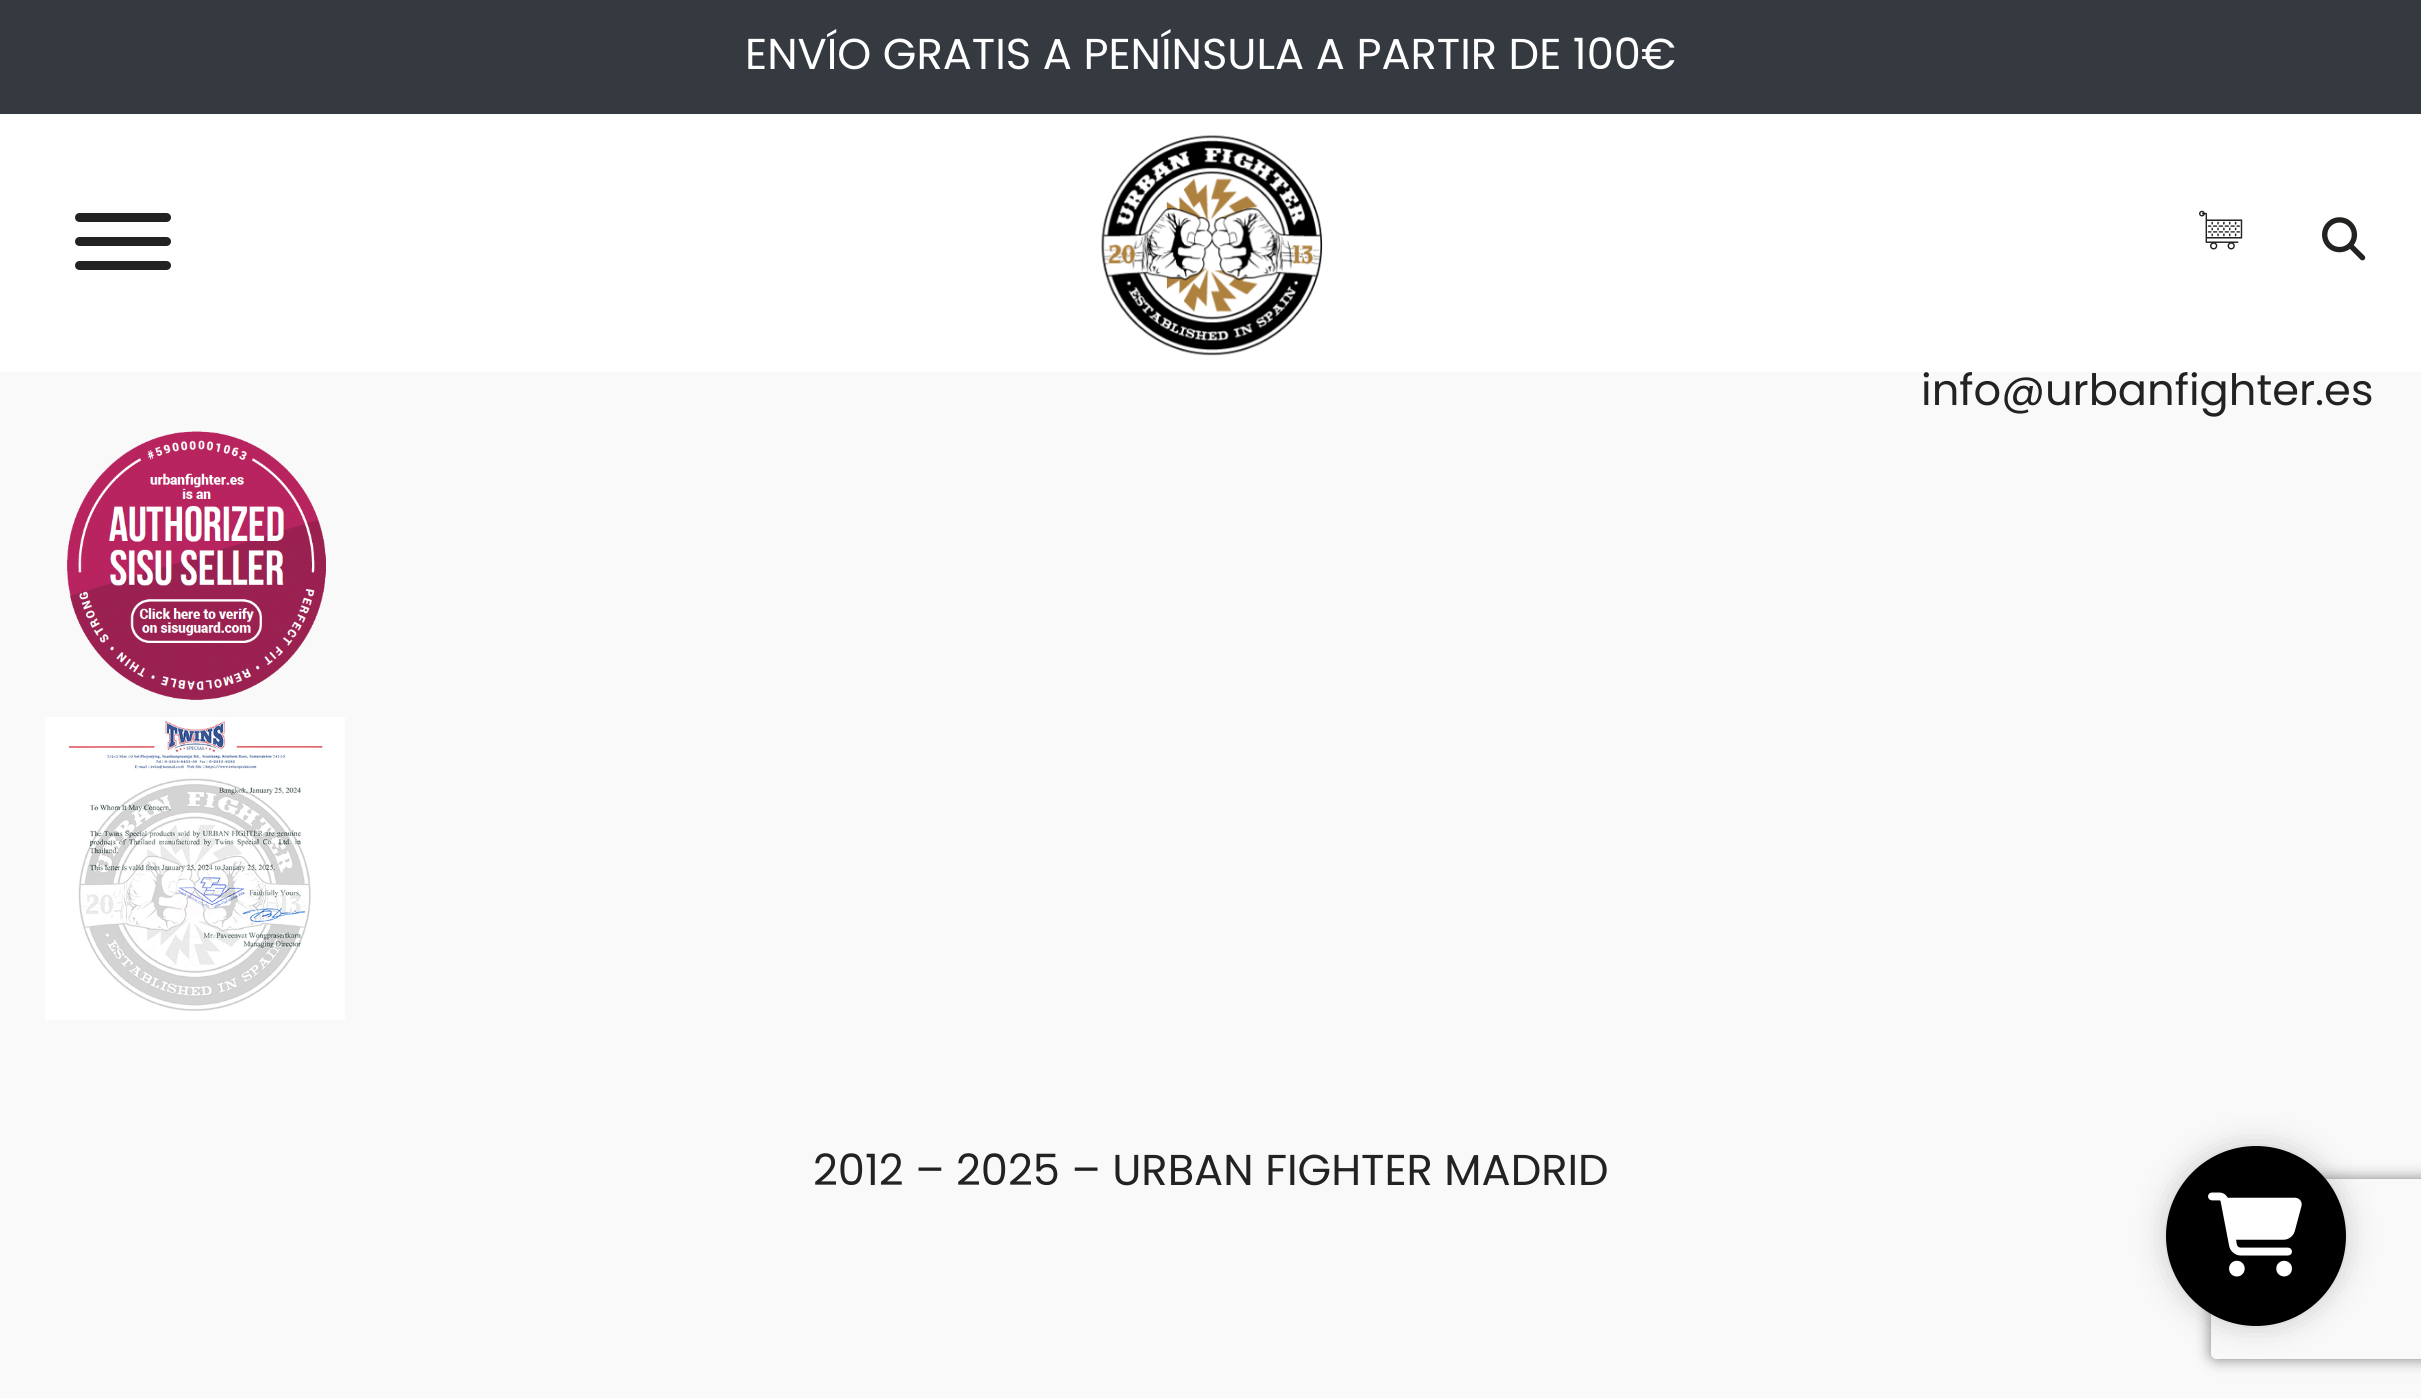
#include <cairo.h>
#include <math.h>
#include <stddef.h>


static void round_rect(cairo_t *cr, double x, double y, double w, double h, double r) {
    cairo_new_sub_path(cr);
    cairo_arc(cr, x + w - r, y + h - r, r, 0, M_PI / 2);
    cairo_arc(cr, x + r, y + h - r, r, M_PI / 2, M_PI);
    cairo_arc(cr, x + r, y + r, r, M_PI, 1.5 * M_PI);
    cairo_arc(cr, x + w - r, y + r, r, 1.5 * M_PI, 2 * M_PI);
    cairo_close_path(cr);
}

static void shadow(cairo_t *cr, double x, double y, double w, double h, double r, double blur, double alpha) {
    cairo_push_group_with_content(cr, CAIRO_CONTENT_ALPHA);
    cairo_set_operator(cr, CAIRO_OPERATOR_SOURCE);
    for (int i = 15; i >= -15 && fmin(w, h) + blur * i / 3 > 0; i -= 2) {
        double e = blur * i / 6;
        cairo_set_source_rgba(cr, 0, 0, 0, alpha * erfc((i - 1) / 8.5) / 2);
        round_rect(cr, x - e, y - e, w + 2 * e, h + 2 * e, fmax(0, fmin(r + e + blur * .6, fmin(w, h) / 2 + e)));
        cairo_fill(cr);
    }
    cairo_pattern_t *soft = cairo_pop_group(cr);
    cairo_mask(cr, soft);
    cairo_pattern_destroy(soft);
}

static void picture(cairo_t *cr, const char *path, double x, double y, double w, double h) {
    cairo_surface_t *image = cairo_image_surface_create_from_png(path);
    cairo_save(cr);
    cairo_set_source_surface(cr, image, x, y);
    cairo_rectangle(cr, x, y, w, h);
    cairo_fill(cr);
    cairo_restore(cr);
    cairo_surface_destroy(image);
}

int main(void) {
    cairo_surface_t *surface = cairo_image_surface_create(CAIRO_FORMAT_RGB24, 2421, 1399);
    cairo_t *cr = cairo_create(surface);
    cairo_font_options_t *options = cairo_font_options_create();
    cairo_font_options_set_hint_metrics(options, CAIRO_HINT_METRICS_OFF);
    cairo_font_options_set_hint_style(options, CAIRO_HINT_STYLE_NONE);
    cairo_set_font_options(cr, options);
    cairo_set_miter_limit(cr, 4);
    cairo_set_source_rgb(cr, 1, 1, 1);
    cairo_paint(cr);
    cairo_set_source_rgb(cr, 0.204, 0.227, 0.251);
    cairo_rectangle(cr, 0, 0, 2421, 114);
    cairo_fill(cr);
    cairo_select_font_face(cr, "Poppins", CAIRO_FONT_SLANT_NORMAL, CAIRO_FONT_WEIGHT_NORMAL);
    cairo_set_font_size(cr, 43.2);
    cairo_set_source_rgb(cr, 1, 1, 1);
    cairo_move_to(cr, 745, 69);
    cairo_show_text(cr, "ENVÍO GRATIS A PENÍNSULA A PARTIR DE 100€");
    cairo_set_source_rgb(cr, 0.133, 0.133, 0.133);
    round_rect(cr, 75, 213, 96, 9, 4.5);
    cairo_fill(cr);
    round_rect(cr, 75, 237, 96, 9, 4.5);
    cairo_fill(cr);
    round_rect(cr, 75, 261, 96, 9, 4.5);
    cairo_fill(cr);
    picture(cr, "img1.png", 1101, 135, 222, 221);
    picture(cr, "img2.png", 2199, 210, 44, 40);
    picture(cr, "img3.png", 2322, 217, 44, 44);
    cairo_set_source_rgb(cr, 0.973, 0.976, 0.98);
    cairo_rectangle(cr, 0, 372, 2421, 1026);
    cairo_fill(cr);
    cairo_set_source_rgb(cr, 0.133, 0.133, 0.129);
    cairo_move_to(cr, 1921, 405);
    cairo_show_text(cr, "info@urbanfighter.es");
    picture(cr, "img4.png", 67, 431, 259, 269);
    picture(cr, "img5.png", 45, 717, 300, 303);
    cairo_move_to(cr, 813, 1185);
    cairo_show_text(cr, "2012 – 2025 – URBAN FIGHTER MADRID");
    cairo_set_source_rgb(cr, 0, 0, 0);
    shadow(cr, 2166, 1146, 180, 180, 90, 15, 0.19);
    cairo_save(cr);
    cairo_set_fill_rule(cr, CAIRO_FILL_RULE_EVEN_ODD);
    cairo_new_path(cr);
    cairo_move_to(cr, 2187, 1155);
    cairo_line_to(cr, 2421, 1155);
    cairo_line_to(cr, 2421, 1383);
    cairo_line_to(cr, 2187, 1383);
    cairo_close_path(cr);
    cairo_move_to(cr, 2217, 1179);
    cairo_line_to(cr, 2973, 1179);
    cairo_curve_to(cr, 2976.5, 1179, 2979, 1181.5, 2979, 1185);
    cairo_line_to(cr, 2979, 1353);
    cairo_curve_to(cr, 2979, 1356.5, 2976.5, 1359, 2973, 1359);
    cairo_line_to(cr, 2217, 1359);
    cairo_curve_to(cr, 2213.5, 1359, 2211, 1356.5, 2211, 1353);
    cairo_line_to(cr, 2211, 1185);
    cairo_curve_to(cr, 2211, 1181.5, 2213.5, 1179, 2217, 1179);
    cairo_close_path(cr);
    cairo_clip(cr);
    cairo_set_source_rgb(cr, 0.502, 0.502, 0.502);
    shadow(cr, 2211, 1179, 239, 180, 6, 7.5, 1);
    cairo_restore(cr);
    cairo_set_source_rgb(cr, 0, 0, 0);
    cairo_arc(cr, 2256, 1236, 90, 0, 2 * M_PI);
    cairo_fill(cr);
    picture(cr, "img6.png", 2208, 1192, 94, 85);
    cairo_surface_write_to_png(surface, "page.png");
    cairo_font_options_destroy(options);
    cairo_destroy(cr);
    cairo_surface_destroy(surface);
    return 0;
}
